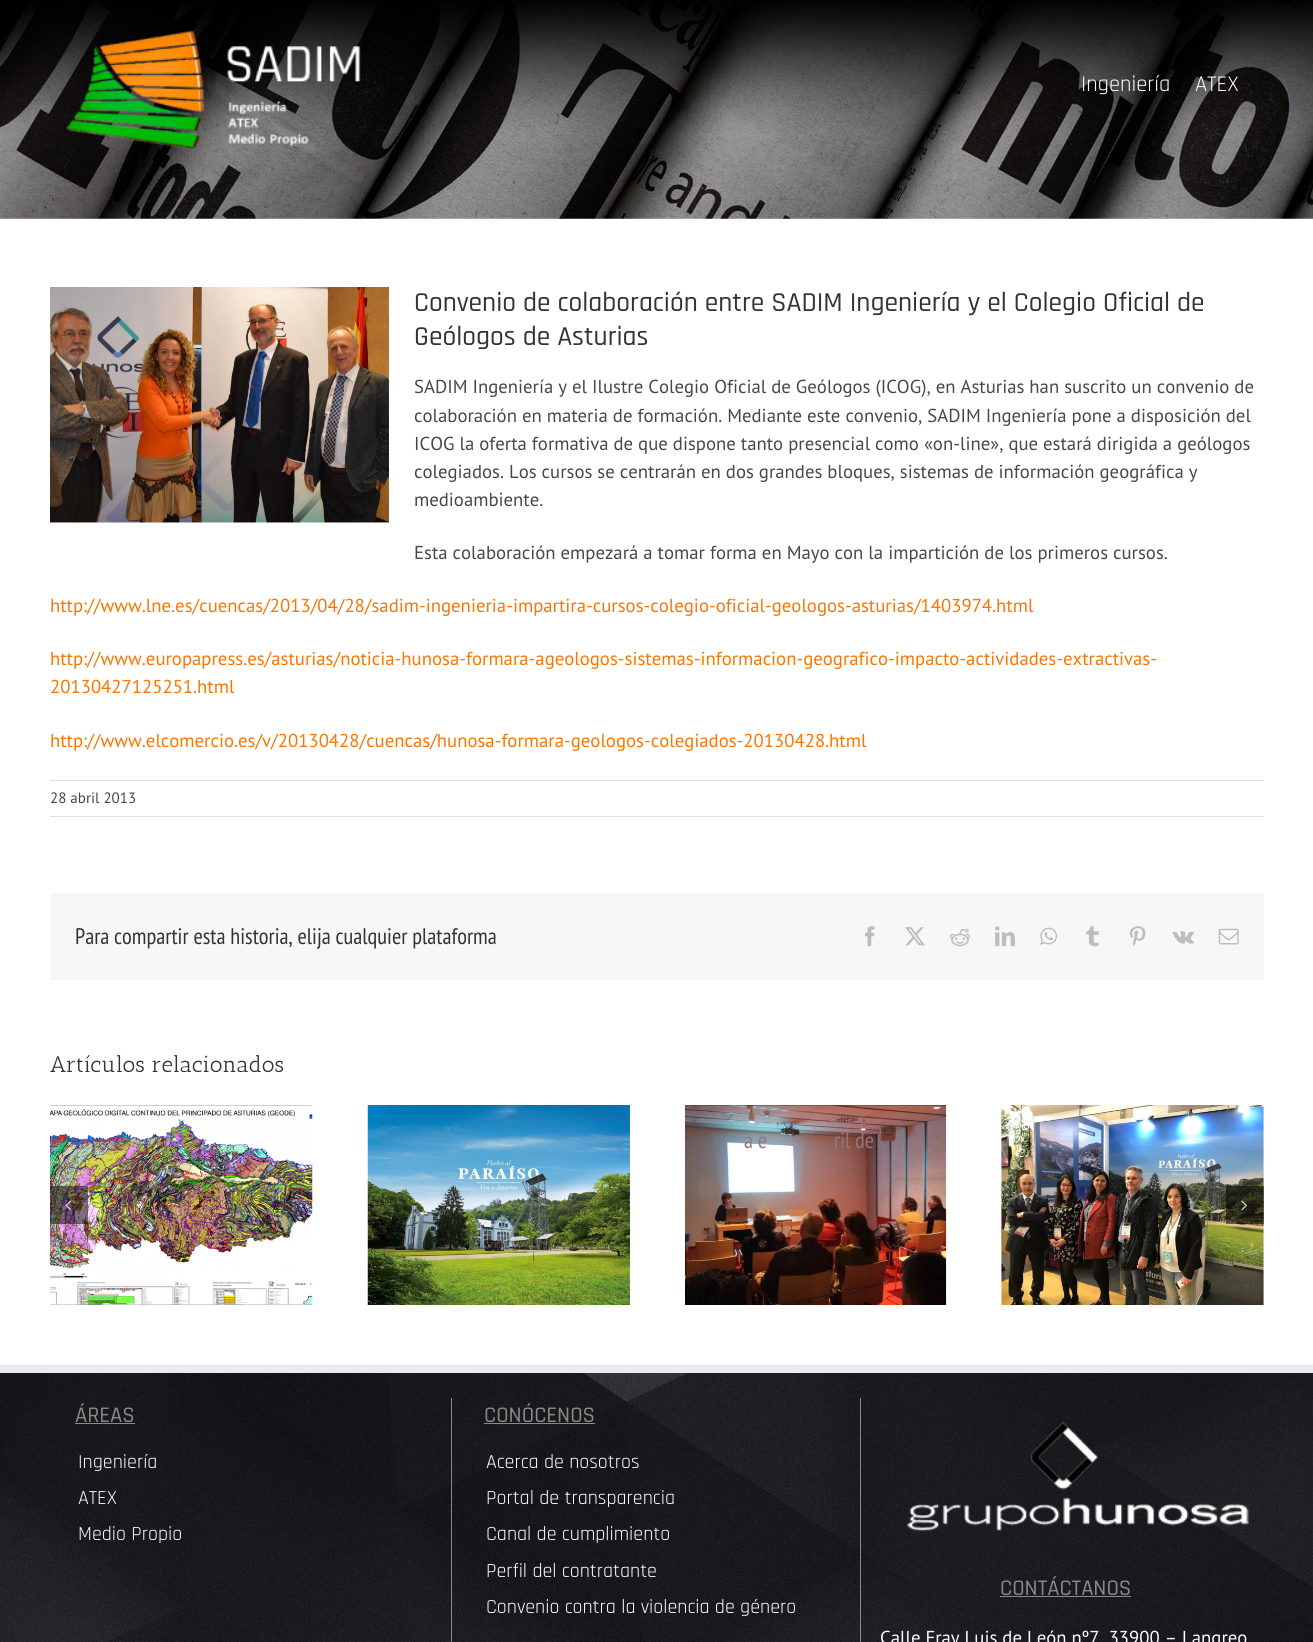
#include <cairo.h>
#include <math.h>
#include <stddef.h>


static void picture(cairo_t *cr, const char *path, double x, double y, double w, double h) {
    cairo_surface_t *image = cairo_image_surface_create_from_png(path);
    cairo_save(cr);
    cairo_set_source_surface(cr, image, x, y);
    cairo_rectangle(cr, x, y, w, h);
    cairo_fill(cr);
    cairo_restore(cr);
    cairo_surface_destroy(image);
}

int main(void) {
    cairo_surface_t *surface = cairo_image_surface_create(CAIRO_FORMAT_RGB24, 1313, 1642);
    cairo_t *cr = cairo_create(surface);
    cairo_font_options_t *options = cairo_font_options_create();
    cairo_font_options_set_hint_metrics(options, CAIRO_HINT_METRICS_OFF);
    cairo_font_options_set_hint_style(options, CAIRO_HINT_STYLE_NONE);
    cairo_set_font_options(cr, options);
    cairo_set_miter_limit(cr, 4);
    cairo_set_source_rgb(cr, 1, 1, 1);
    cairo_paint(cr);
    picture(cr, "img2.png", 0, 0, 1313, 219);
    picture(cr, "img1.png", 66, 30, 295, 120);
    cairo_select_font_face(cr, "Rajdhani", CAIRO_FONT_SLANT_NORMAL, CAIRO_FONT_WEIGHT_NORMAL);
    cairo_set_font_size(cr, 22.5);
    cairo_set_source_rgb(cr, 0.988, 0.988, 0.988);
    cairo_move_to(cr, 1081, 91);
    cairo_show_text(cr, "Ingeniería");
    cairo_move_to(cr, 1195, 91);
    cairo_show_text(cr, "ATEX");
    picture(cr, "img3.png", 50, 287, 339, 236);
    cairo_select_font_face(cr, "Rajdhani Medium", CAIRO_FONT_SLANT_NORMAL, CAIRO_FONT_WEIGHT_NORMAL);
    cairo_set_font_size(cr, 27.5);
    cairo_set_source_rgb(cr, 0.2, 0.2, 0.2);
    cairo_move_to(cr, 414, 311);
    cairo_show_text(cr, "Convenio de colaboración entre SADIM Ingeniería y el Colegio Oficial de");
    cairo_move_to(cr, 414, 345);
    cairo_show_text(cr, "Geólogos de Asturias");
    cairo_select_font_face(cr, "PT Sans", CAIRO_FONT_SLANT_NORMAL, CAIRO_FONT_WEIGHT_NORMAL);
    cairo_set_font_size(cr, 18.75);
    cairo_set_source_rgb(cr, 0.278, 0.278, 0.278);
    cairo_move_to(cr, 414, 393);
    cairo_show_text(cr, "SADIM Ingeniería y el Ilustre Colegio Oficial de Geólogos (ICOG), en Asturias han suscrito un convenio de");
    cairo_move_to(cr, 414, 422);
    cairo_show_text(cr, "colaboración en materia de formación. Mediante este convenio, SADIM Ingeniería pone a disposición del");
    cairo_move_to(cr, 414, 450);
    cairo_show_text(cr, "ICOG la oferta formativa de que dispone tanto presencial como «on-line», que estará dirigida a geólogos");
    cairo_move_to(cr, 414, 478);
    cairo_show_text(cr, "colegiados. Los cursos se centrarán en dos grandes bloques, sistemas de información geográfica y");
    cairo_move_to(cr, 414, 506);
    cairo_show_text(cr, "medioambiente.");
    cairo_move_to(cr, 414, 559);
    cairo_show_text(cr, "Esta colaboración empezará a tomar forma en Mayo con la impartición de los primeros cursos.");
    cairo_set_source_rgb(cr, 0.988, 0.459, 0);
    cairo_move_to(cr, 50, 612);
    cairo_show_text(cr, "http://www.lne.es/cuencas/2013/04/28/sadim-ingenieria-impartira-cursos-colegio-oficial-geologos-asturias/1403974.html");
    cairo_move_to(cr, 50, 665);
    cairo_show_text(cr, "http://www.europapress.es/asturias/noticia-hunosa-formara-ageologos-sistemas-informacion-geografico-impacto-actividades-extractivas-");
    cairo_move_to(cr, 50, 693);
    cairo_show_text(cr, "20130427125251.html");
    cairo_move_to(cr, 50, 747);
    cairo_show_text(cr, "http://www.elcomercio.es/v/20130428/cuencas/hunosa-formara-geologos-colegiados-20130428.html");
    cairo_set_source_rgb(cr, 0.878, 0.871, 0.871);
    cairo_rectangle(cr, 50, 780, 1214, 1);
    cairo_fill(cr);
    cairo_rectangle(cr, 50, 816, 1214, 1);
    cairo_fill(cr);
    cairo_set_font_size(cr, 15);
    cairo_set_source_rgb(cr, 0.278, 0.278, 0.278);
    cairo_move_to(cr, 50, 803);
    cairo_show_text(cr, "28 abril 2013");
    cairo_set_source_rgb(cr, 0.965, 0.965, 0.965);
    cairo_rectangle(cr, 50, 893, 1214, 87);
    cairo_fill(cr);
    cairo_select_font_face(cr, "PT Sans Narrow", CAIRO_FONT_SLANT_NORMAL, CAIRO_FONT_WEIGHT_NORMAL);
    cairo_set_font_size(cr, 22.5);
    cairo_set_source_rgb(cr, 0.2, 0.2, 0.2);
    cairo_move_to(cr, 75, 944);
    cairo_show_text(cr, "Para compartir esta historia, elija cualquier plataforma");
    picture(cr, "img4.png", 865, 926, 10, 21);
    picture(cr, "img5.png", 905, 927, 20, 19);
    picture(cr, "img6.png", 950, 928, 20, 19);
    picture(cr, "img7.png", 995, 926, 20, 21);
    picture(cr, "img8.png", 1040, 927, 18, 18);
    picture(cr, "img9.png", 1086, 926, 13, 21);
    picture(cr, "img10.png", 1129, 926, 17, 20);
    picture(cr, "img11.png", 1172, 931, 22, 13);
    picture(cr, "img12.png", 1218, 928, 21, 17);
    cairo_select_font_face(cr, "Antic Slab", CAIRO_FONT_SLANT_NORMAL, CAIRO_FONT_WEIGHT_NORMAL);
    cairo_move_to(cr, 50, 1072);
    cairo_show_text(cr, "Artículos relacionados");
    picture(cr, "img13.png", 50, 1105, 263, 200);
    picture(cr, "img14.png", 367, 1105, 263, 200);
    picture(cr, "img15.png", 1001, 1105, 263, 200);
    cairo_select_font_face(cr, "PT Sans Narrow", CAIRO_FONT_SLANT_NORMAL, CAIRO_FONT_WEIGHT_NORMAL);
    cairo_set_source_rgb(cr, 0.835, 0.788, 0.702);
    cairo_move_to(cr, 1120, 1114);
    cairo_show_text(cr, ".");
    picture(cr, "img16.png", 685, 1105, 262, 200);
    cairo_set_source_rgb(cr, 0.557, 0.478, 0.486);
    cairo_move_to(cr, 744, 1148);
    cairo_show_text(cr, "a e");
    cairo_move_to(cr, 834, 1148);
    cairo_show_text(cr, "ril de");
    cairo_set_source_rgba(cr, 0, 0, 0, 0.48);
    cairo_rectangle(cr, 50, 1186, 38, 38);
    cairo_fill(cr);
    picture(cr, "img17.png", 65, 1200, 7, 11);
    cairo_rectangle(cr, 1226, 1186, 38, 38);
    cairo_fill(cr);
    picture(cr, "img18.png", 1241, 1200, 6, 11);
    picture(cr, "img19.png", 0, 1373, 1313, 269);
    cairo_set_source_rgb(cr, 0.914, 0.918, 0.933);
    cairo_rectangle(cr, 0, 1365, 1313, 8);
    cairo_fill(cr);
    cairo_set_source_rgb(cr, 0.549, 0.537, 0.537);
    cairo_rectangle(cr, 451, 1398, 1, 244);
    cairo_fill(cr);
    cairo_select_font_face(cr, "Rajdhani Medium", CAIRO_FONT_SLANT_NORMAL, CAIRO_FONT_WEIGHT_NORMAL);
    cairo_move_to(cr, 75, 1422);
    cairo_show_text(cr, "ÁREAS");
    cairo_rectangle(cr, 75, 1423, 60, 1);
    cairo_fill(cr);
    cairo_select_font_face(cr, "Rajdhani", CAIRO_FONT_SLANT_NORMAL, CAIRO_FONT_WEIGHT_NORMAL);
    cairo_set_font_size(cr, 20);
    cairo_set_source_rgb(cr, 0.988, 0.988, 0.988);
    cairo_move_to(cr, 78, 1468);
    cairo_show_text(cr, "Ingeniería");
    cairo_move_to(cr, 78, 1504);
    cairo_show_text(cr, "ATEX");
    cairo_move_to(cr, 78, 1540);
    cairo_show_text(cr, "Medio Propio");
    cairo_set_source_rgb(cr, 0.549, 0.537, 0.537);
    cairo_rectangle(cr, 860, 1398, 1, 244);
    cairo_fill(cr);
    cairo_select_font_face(cr, "Rajdhani Medium", CAIRO_FONT_SLANT_NORMAL, CAIRO_FONT_WEIGHT_NORMAL);
    cairo_set_font_size(cr, 22.5);
    cairo_move_to(cr, 484, 1422);
    cairo_show_text(cr, "CONÓCENOS");
    cairo_rectangle(cr, 484, 1423, 111, 1);
    cairo_fill(cr);
    cairo_select_font_face(cr, "Rajdhani", CAIRO_FONT_SLANT_NORMAL, CAIRO_FONT_WEIGHT_NORMAL);
    cairo_set_font_size(cr, 20);
    cairo_set_source_rgb(cr, 0.988, 0.988, 0.988);
    cairo_move_to(cr, 486, 1468);
    cairo_show_text(cr, "Acerca de nosotros");
    cairo_move_to(cr, 486, 1504);
    cairo_show_text(cr, "Portal de transparencia");
    cairo_move_to(cr, 486, 1540);
    cairo_show_text(cr, "Canal de cumplimiento");
    cairo_move_to(cr, 486, 1577);
    cairo_show_text(cr, "Perfil del contratante");
    cairo_move_to(cr, 486, 1613);
    cairo_show_text(cr, "Convenio contra la violencia de género");
    picture(cr, "img20.png", 907, 1421, 343, 111);
    cairo_select_font_face(cr, "Rajdhani Medium", CAIRO_FONT_SLANT_NORMAL, CAIRO_FONT_WEIGHT_NORMAL);
    cairo_set_font_size(cr, 22.5);
    cairo_set_source_rgb(cr, 0.549, 0.537, 0.537);
    cairo_move_to(cr, 1000, 1595);
    cairo_show_text(cr, "CONTÁCTANOS");
    cairo_rectangle(cr, 1000, 1596, 131, 1);
    cairo_fill(cr);
    cairo_select_font_face(cr, "PT Sans", CAIRO_FONT_SLANT_NORMAL, CAIRO_FONT_WEIGHT_NORMAL);
    cairo_set_font_size(cr, 18.75);
    cairo_set_source_rgb(cr, 0.988, 0.988, 0.988);
    cairo_move_to(cr, 880, 1644);
    cairo_show_text(cr, "Calle Fray Luis de León nº7, 33900 – Langreo");
    cairo_surface_write_to_png(surface, "page.png");
    cairo_font_options_destroy(options);
    cairo_destroy(cr);
    cairo_surface_destroy(surface);
    return 0;
}
